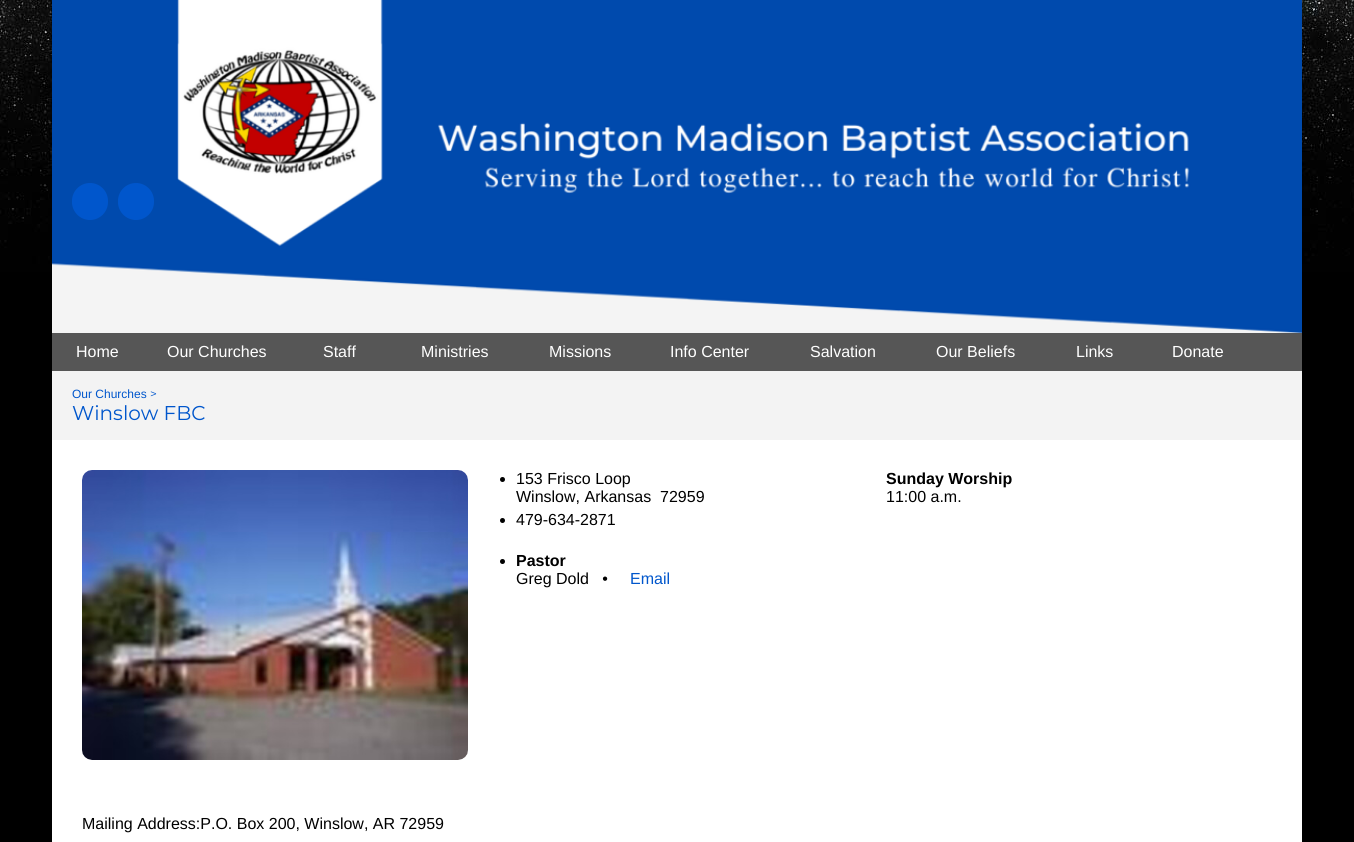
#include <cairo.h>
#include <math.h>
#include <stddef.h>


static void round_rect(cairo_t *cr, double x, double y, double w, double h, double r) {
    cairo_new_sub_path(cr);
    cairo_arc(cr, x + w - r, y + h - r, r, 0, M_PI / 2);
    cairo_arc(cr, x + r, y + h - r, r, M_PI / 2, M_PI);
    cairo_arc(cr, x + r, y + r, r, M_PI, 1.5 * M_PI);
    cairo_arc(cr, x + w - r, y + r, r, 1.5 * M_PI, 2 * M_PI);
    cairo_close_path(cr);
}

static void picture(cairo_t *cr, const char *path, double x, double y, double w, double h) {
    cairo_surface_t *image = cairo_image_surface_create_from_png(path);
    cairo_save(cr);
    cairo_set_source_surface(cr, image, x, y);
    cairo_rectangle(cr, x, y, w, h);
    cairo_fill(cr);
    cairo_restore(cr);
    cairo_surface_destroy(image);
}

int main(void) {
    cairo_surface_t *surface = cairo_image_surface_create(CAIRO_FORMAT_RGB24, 1354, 842);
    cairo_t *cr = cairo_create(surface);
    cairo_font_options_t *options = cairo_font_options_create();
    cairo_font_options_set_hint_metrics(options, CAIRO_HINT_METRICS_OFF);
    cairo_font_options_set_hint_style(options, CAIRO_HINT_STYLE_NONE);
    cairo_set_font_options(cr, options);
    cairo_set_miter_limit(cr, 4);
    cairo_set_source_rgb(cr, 0, 0, 0);
    cairo_paint(cr);
    picture(cr, "img1.png", 0, 0, 1354, 272);
    picture(cr, "img2.png", 52, 0, 1250, 333);
    cairo_set_source_rgb(cr, 0, 0.337, 0.8);
    round_rect(cr, 72, 183, 36, 37, 18);
    cairo_fill(cr);
    round_rect(cr, 118, 183, 36, 37, 18);
    cairo_fill(cr);
    cairo_set_source_rgb(cr, 0.337, 0.337, 0.337);
    cairo_rectangle(cr, 52, 333, 1250, 38);
    cairo_fill(cr);
    cairo_select_font_face(cr, "Liberation Sans", CAIRO_FONT_SLANT_NORMAL, CAIRO_FONT_WEIGHT_NORMAL);
    cairo_set_font_size(cr, 16);
    cairo_set_source_rgb(cr, 1, 1, 1);
    cairo_move_to(cr, 76, 357);
    cairo_show_text(cr, "Home");
    cairo_move_to(cr, 167, 357);
    cairo_show_text(cr, "Our Churches");
    cairo_move_to(cr, 323, 357);
    cairo_show_text(cr, "Staff");
    cairo_move_to(cr, 421, 357);
    cairo_show_text(cr, "Ministries");
    cairo_move_to(cr, 549, 357);
    cairo_show_text(cr, "Missions");
    cairo_move_to(cr, 670, 357);
    cairo_show_text(cr, "Info Center");
    cairo_move_to(cr, 810, 357);
    cairo_show_text(cr, "Salvation");
    cairo_move_to(cr, 936, 357);
    cairo_show_text(cr, "Our Beliefs");
    cairo_move_to(cr, 1076, 357);
    cairo_show_text(cr, "Links");
    cairo_move_to(cr, 1172, 357);
    cairo_show_text(cr, "Donate");
    cairo_rectangle(cr, 52, 440, 1250, 402);
    cairo_fill(cr);
    cairo_set_source_rgb(cr, 0.953, 0.953, 0.953);
    cairo_rectangle(cr, 52, 371, 1250, 69);
    cairo_fill(cr);
    cairo_set_font_size(cr, 12);
    cairo_set_source_rgb(cr, 0, 0.337, 0.8);
    cairo_move_to(cr, 72, 398);
    cairo_show_text(cr, "Our Churches");
    cairo_select_font_face(cr, "Montserrat Thin", CAIRO_FONT_SLANT_NORMAL, CAIRO_FONT_WEIGHT_NORMAL);
    cairo_move_to(cr, 150, 398);
    cairo_show_text(cr, ">");
    cairo_set_font_size(cr, 20);
    cairo_move_to(cr, 72, 420);
    cairo_show_text(cr, "Winslow FBC");
    picture(cr, "img3.png", 82, 470, 386, 290);
    cairo_set_source_rgb(cr, 0, 0, 0);
    cairo_arc(cr, 502.5, 479.5, 2.5, 0, 2 * M_PI);
    cairo_fill(cr);
    cairo_select_font_face(cr, "Liberation Sans", CAIRO_FONT_SLANT_NORMAL, CAIRO_FONT_WEIGHT_NORMAL);
    cairo_set_font_size(cr, 16);
    cairo_move_to(cr, 516, 484);
    cairo_show_text(cr, "153 Frisco Loop");
    cairo_move_to(cr, 516, 502);
    cairo_show_text(cr, "Winslow, Arkansas  72959");
    cairo_new_path(cr);
    cairo_arc(cr, 502.5, 520.5, 2.5, 0, 2 * M_PI);
    cairo_fill(cr);
    cairo_move_to(cr, 516, 525);
    cairo_show_text(cr, "479-634-2871");
    cairo_new_path(cr);
    cairo_arc(cr, 502.5, 561.5, 2.5, 0, 2 * M_PI);
    cairo_fill(cr);
    cairo_select_font_face(cr, "Liberation Sans", CAIRO_FONT_SLANT_NORMAL, CAIRO_FONT_WEIGHT_BOLD);
    cairo_move_to(cr, 516, 566);
    cairo_show_text(cr, "Pastor");
    cairo_select_font_face(cr, "Liberation Sans", CAIRO_FONT_SLANT_NORMAL, CAIRO_FONT_WEIGHT_NORMAL);
    cairo_move_to(cr, 516, 584);
    cairo_show_text(cr, "Greg Dold   •");
    cairo_set_source_rgb(cr, 0, 0.337, 0.8);
    cairo_move_to(cr, 630, 584);
    cairo_show_text(cr, "Email");
    cairo_select_font_face(cr, "Liberation Sans", CAIRO_FONT_SLANT_NORMAL, CAIRO_FONT_WEIGHT_BOLD);
    cairo_set_source_rgb(cr, 0, 0, 0);
    cairo_move_to(cr, 886, 484);
    cairo_show_text(cr, "Sunday Worship");
    cairo_select_font_face(cr, "Liberation Sans", CAIRO_FONT_SLANT_NORMAL, CAIRO_FONT_WEIGHT_NORMAL);
    cairo_move_to(cr, 886, 502);
    cairo_show_text(cr, "11:00 a.m.");
    cairo_move_to(cr, 82, 829);
    cairo_show_text(cr, "Mailing Address:P.O. Box 200, Winslow, AR 72959");
    cairo_surface_write_to_png(surface, "page.png");
    cairo_font_options_destroy(options);
    cairo_destroy(cr);
    cairo_surface_destroy(surface);
    return 0;
}
